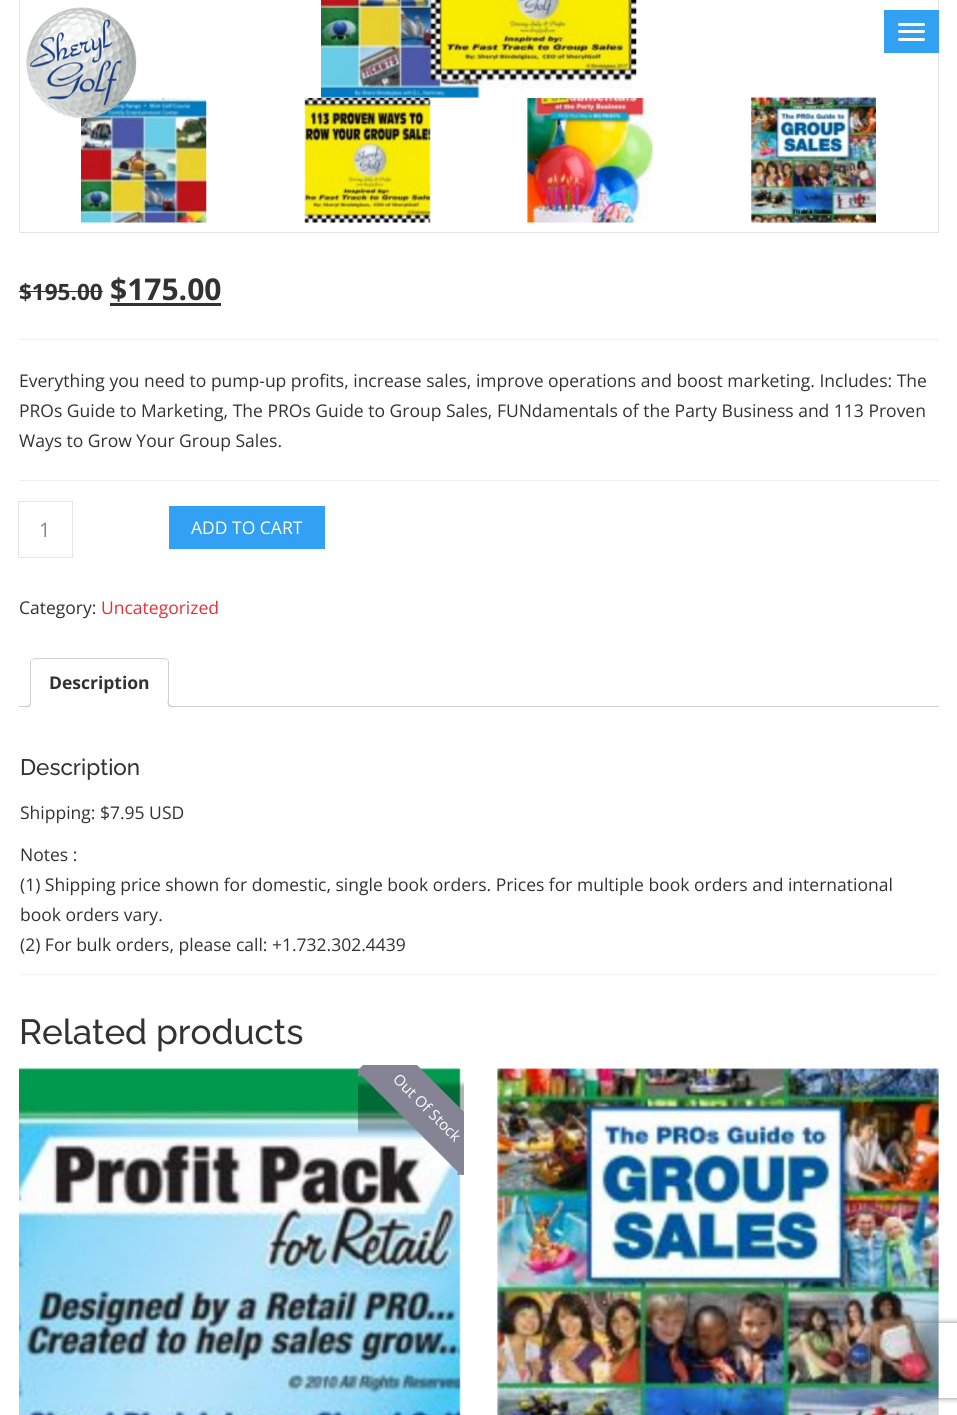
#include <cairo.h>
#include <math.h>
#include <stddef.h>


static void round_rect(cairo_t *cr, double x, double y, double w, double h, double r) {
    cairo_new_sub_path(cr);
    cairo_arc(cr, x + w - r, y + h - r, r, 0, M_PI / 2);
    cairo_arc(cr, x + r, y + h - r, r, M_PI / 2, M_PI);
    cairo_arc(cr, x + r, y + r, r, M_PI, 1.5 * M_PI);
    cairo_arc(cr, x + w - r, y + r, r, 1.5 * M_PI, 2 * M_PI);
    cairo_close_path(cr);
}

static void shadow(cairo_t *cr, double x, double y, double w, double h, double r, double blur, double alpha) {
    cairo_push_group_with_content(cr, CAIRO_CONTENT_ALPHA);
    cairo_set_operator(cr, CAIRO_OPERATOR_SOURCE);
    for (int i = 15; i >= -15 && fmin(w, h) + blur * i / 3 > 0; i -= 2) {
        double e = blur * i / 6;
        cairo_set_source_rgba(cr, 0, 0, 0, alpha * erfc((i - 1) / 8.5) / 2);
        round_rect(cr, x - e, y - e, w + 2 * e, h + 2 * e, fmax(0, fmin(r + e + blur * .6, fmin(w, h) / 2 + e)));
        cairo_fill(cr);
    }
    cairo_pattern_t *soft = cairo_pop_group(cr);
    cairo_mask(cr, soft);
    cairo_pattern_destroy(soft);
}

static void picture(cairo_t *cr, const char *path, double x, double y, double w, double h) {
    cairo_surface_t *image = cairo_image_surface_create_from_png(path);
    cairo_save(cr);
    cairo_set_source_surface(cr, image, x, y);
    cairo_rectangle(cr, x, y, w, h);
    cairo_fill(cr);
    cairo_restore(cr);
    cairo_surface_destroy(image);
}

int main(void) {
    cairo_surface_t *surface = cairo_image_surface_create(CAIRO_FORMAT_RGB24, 957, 1415);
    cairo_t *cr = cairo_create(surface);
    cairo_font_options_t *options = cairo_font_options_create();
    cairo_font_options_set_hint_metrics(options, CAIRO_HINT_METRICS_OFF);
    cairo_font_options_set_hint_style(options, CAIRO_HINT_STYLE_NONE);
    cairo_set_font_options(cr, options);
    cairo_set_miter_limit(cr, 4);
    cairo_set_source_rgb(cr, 1, 1, 1);
    cairo_paint(cr);
    cairo_rectangle(cr, 19.5, -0.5, 919, 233);
    cairo_set_source_rgb(cr, 0.898, 0.898, 0.898);
    cairo_set_line_width(cr, 1);
    cairo_stroke(cr);
    picture(cr, "img3.png", 81, 98, 126, 125);
    picture(cr, "img1.png", 26, 7, 111, 112);
    cairo_set_source_rgb(cr, 0.2, 0.631, 0.953);
    cairo_rectangle(cr, 884, 10, 55, 43);
    cairo_fill(cr);
    cairo_set_source_rgb(cr, 1, 1, 1);
    round_rect(cr, 898, 23, 27, 3, 1.5);
    cairo_fill(cr);
    round_rect(cr, 898, 30, 27, 3, 1.5);
    cairo_fill(cr);
    round_rect(cr, 898, 38, 27, 3, 1.5);
    cairo_fill(cr);
    picture(cr, "img2.png", 321, 0, 316, 98);
    picture(cr, "img4.png", 304, 98, 127, 125);
    picture(cr, "img5.png", 527, 98, 127, 125);
    picture(cr, "img6.png", 751, 96, 125, 127);
    cairo_select_font_face(cr, "Open Sans", CAIRO_FONT_SLANT_NORMAL, CAIRO_FONT_WEIGHT_BOLD);
    cairo_set_font_size(cr, 22.5);
    cairo_set_source_rgb(cr, 0.196, 0.196, 0.196);
    cairo_move_to(cr, 19, 300);
    cairo_show_text(cr, "$195.00");
    cairo_rectangle(cr, 19, 291, 84, 1);
    cairo_fill(cr);
    cairo_set_font_size(cr, 30);
    cairo_move_to(cr, 110, 300);
    cairo_show_text(cr, "$175.00");
    cairo_rectangle(cr, 110, 303, 111, 3);
    cairo_fill(cr);
    cairo_set_source_rgb(cr, 0.933, 0.933, 0.933);
    cairo_rectangle(cr, 19, 339, 920, 1);
    cairo_fill(cr);
    cairo_select_font_face(cr, "Open Sans", CAIRO_FONT_SLANT_NORMAL, CAIRO_FONT_WEIGHT_NORMAL);
    cairo_set_font_size(cr, 17.5);
    cairo_set_source_rgb(cr, 0.196, 0.196, 0.196);
    cairo_move_to(cr, 19, 387);
    cairo_show_text(cr, "Everything you need to pump-up profits, increase sales, improve operations and boost marketing. Includes: The");
    cairo_move_to(cr, 19, 417);
    cairo_show_text(cr, "PROs Guide to Marketing, The PROs Guide to Group Sales, FUNdamentals of the Party Business and 113 Proven");
    cairo_move_to(cr, 19, 447);
    cairo_show_text(cr, "Ways to Grow Your Group Sales.");
    cairo_set_source_rgb(cr, 0.933, 0.933, 0.933);
    cairo_rectangle(cr, 19, 480, 920, 1);
    cairo_fill(cr);
    cairo_rectangle(cr, 18.5, 501.5, 54, 56);
    cairo_set_source_rgb(cr, 0.898, 0.898, 0.898);
    cairo_stroke(cr);
    cairo_set_font_size(cr, 20);
    cairo_set_source_rgb(cr, 0.518, 0.518, 0.58);
    cairo_move_to(cr, 39, 537);
    cairo_show_text(cr, "1");
    cairo_set_source_rgb(cr, 0.2, 0.631, 0.953);
    cairo_rectangle(cr, 169, 506, 156, 43);
    cairo_fill(cr);
    cairo_set_font_size(cr, 17.5);
    cairo_set_source_rgb(cr, 1, 1, 1);
    cairo_move_to(cr, 191, 534);
    cairo_show_text(cr, "ADD TO CART");
    cairo_set_source_rgb(cr, 0.196, 0.196, 0.196);
    cairo_move_to(cr, 19, 614);
    cairo_show_text(cr, "Category:");
    cairo_set_source_rgb(cr, 0.922, 0.173, 0.2);
    cairo_move_to(cr, 101, 614);
    cairo_show_text(cr, "Uncategorized");
    cairo_set_source_rgb(cr, 0.827, 0.808, 0.824);
    cairo_rectangle(cr, 19, 706, 920, 1);
    cairo_fill(cr);
    cairo_set_source_rgb(cr, 1, 1, 1);
    cairo_new_path(cr);
    cairo_move_to(cr, 35, 658);
    cairo_line_to(cr, 164, 658);
    cairo_curve_to(cr, 167, 658, 169, 660, 169, 663);
    cairo_line_to(cr, 169, 708);
    cairo_line_to(cr, 30, 708);
    cairo_line_to(cr, 30, 663);
    cairo_curve_to(cr, 30, 660, 32, 658, 35, 658);
    cairo_close_path(cr);
    cairo_fill(cr);
    cairo_set_source_rgb(cr, 0.827, 0.808, 0.824);
    cairo_new_path(cr);
    cairo_move_to(cr, 35, 658);
    cairo_line_to(cr, 32, 659);
    cairo_line_to(cr, 32, 660);
    cairo_line_to(cr, 35, 659);
    cairo_line_to(cr, 164, 659);
    cairo_line_to(cr, 167, 660);
    cairo_line_to(cr, 167, 659);
    cairo_line_to(cr, 164, 658);
    cairo_close_path(cr);
    cairo_fill(cr);
    cairo_new_path(cr);
    cairo_move_to(cr, 167, 659);
    cairo_line_to(cr, 169, 661);
    cairo_line_to(cr, 169, 708);
    cairo_line_to(cr, 167, 706);
    cairo_line_to(cr, 168, 706);
    cairo_line_to(cr, 168, 661);
    cairo_line_to(cr, 167, 660);
    cairo_close_path(cr);
    cairo_fill(cr);
    cairo_set_source_rgb(cr, 1, 1, 1);
    cairo_new_path(cr);
    cairo_move_to(cr, 169, 708);
    cairo_line_to(cr, 167, 706);
    cairo_line_to(cr, 32, 706);
    cairo_line_to(cr, 30, 708);
    cairo_close_path(cr);
    cairo_fill(cr);
    cairo_set_source_rgb(cr, 0.827, 0.808, 0.824);
    cairo_new_path(cr);
    cairo_move_to(cr, 30, 708);
    cairo_line_to(cr, 32, 706);
    cairo_line_to(cr, 31, 706);
    cairo_line_to(cr, 31, 661);
    cairo_line_to(cr, 32, 660);
    cairo_line_to(cr, 32, 659);
    cairo_curve_to(cr, 31, 660, 30, 661, 30, 662);
    cairo_close_path(cr);
    cairo_fill(cr);
    cairo_select_font_face(cr, "Open Sans", CAIRO_FONT_SLANT_NORMAL, CAIRO_FONT_WEIGHT_BOLD);
    cairo_set_source_rgb(cr, 0.196, 0.196, 0.196);
    cairo_move_to(cr, 49, 689);
    cairo_show_text(cr, "Description");
    cairo_save(cr);
    cairo_rectangle(cr, 19, 658, 920, 50);
    cairo_clip(cr);
    cairo_set_source_rgb(cr, 1, 1, 1);
    cairo_new_path(cr);
    cairo_move_to(cr, 28, 707);
    cairo_line_to(cr, 28, 710);
    cairo_curve_to(cr, 32, 710, 34, 708, 34, 704);
    cairo_line_to(cr, 31, 704);
    cairo_curve_to(cr, 30.5, 705.5, 29.5, 706.5, 28, 707);
    cairo_close_path(cr);
    cairo_fill(cr);
    cairo_restore(cr);
    cairo_set_source_rgb(cr, 0.827, 0.808, 0.824);
    cairo_set_fill_rule(cr, CAIRO_FILL_RULE_EVEN_ODD);
    cairo_new_path(cr);
    cairo_move_to(cr, 25, 701);
    cairo_line_to(cr, 31, 701);
    cairo_curve_to(cr, 31, 705.5, 29.5, 707.5, 25, 707.5);
    cairo_close_path(cr);
    cairo_move_to(cr, 25, 701);
    cairo_line_to(cr, 30, 701);
    cairo_curve_to(cr, 30, 705, 28.5, 706, 25, 706);
    cairo_close_path(cr);
    cairo_fill(cr);
    cairo_save(cr);
    cairo_set_fill_rule(cr, CAIRO_FILL_RULE_WINDING);
    cairo_rectangle(cr, 19, 658, 920, 50);
    cairo_clip(cr);
    cairo_set_source_rgb(cr, 1, 1, 1);
    cairo_new_path(cr);
    cairo_move_to(cr, 165, 704);
    cairo_curve_to(cr, 165, 708, 167, 710, 171, 710);
    cairo_line_to(cr, 171, 707.5);
    cairo_curve_to(cr, 169.5, 707, 168, 705.5, 167.5, 704);
    cairo_close_path(cr);
    cairo_fill(cr);
    cairo_restore(cr);
    cairo_new_path(cr);
    cairo_move_to(cr, 167.5, 701);
    cairo_line_to(cr, 174, 701);
    cairo_line_to(cr, 174, 707.5);
    cairo_curve_to(cr, 170.5, 707.5, 167.5, 706, 167.5, 702.5);
    cairo_close_path(cr);
    cairo_move_to(cr, 169, 701);
    cairo_line_to(cr, 174, 701);
    cairo_line_to(cr, 174, 706);
    cairo_curve_to(cr, 171.5, 706, 169, 705.5, 169, 702.5);
    cairo_close_path(cr);
    cairo_fill(cr);
    cairo_set_source_rgb(cr, 0, 0, 0);
    shadow(cr, 19, 738, 920, 237, 5, 0.5, 0.05);
    cairo_set_source_rgb(cr, 1, 1, 1);
    round_rect(cr, 19, 736, 920, 238, 5);
    cairo_fill(cr);
    cairo_select_font_face(cr, "Raleway Medium", CAIRO_FONT_SLANT_NORMAL, CAIRO_FONT_WEIGHT_NORMAL);
    cairo_set_font_size(cr, 22.5);
    cairo_set_source_rgb(cr, 0.196, 0.196, 0.196);
    cairo_move_to(cr, 20, 775);
    cairo_show_text(cr, "Description");
    cairo_select_font_face(cr, "Open Sans", CAIRO_FONT_SLANT_NORMAL, CAIRO_FONT_WEIGHT_NORMAL);
    cairo_set_font_size(cr, 17.5);
    cairo_move_to(cr, 20, 819);
    cairo_show_text(cr, "Shipping: $7.95 USD");
    cairo_move_to(cr, 20, 861);
    cairo_show_text(cr, "Notes :");
    cairo_move_to(cr, 20, 891);
    cairo_show_text(cr, "(1) Shipping price shown for domestic, single book orders. Prices for multiple book orders and international");
    cairo_move_to(cr, 20, 921);
    cairo_show_text(cr, "book orders vary.");
    cairo_move_to(cr, 20, 951);
    cairo_show_text(cr, "(2) For bulk orders, please call: +1.732.302.4439");
    cairo_select_font_face(cr, "Raleway Medium", CAIRO_FONT_SLANT_NORMAL, CAIRO_FONT_WEIGHT_NORMAL);
    cairo_set_font_size(cr, 35);
    cairo_move_to(cr, 19, 1044);
    cairo_show_text(cr, "Related products");
    picture(cr, "img7.png", 19, 1068, 442, 347);
    picture(cr, "img8.png", 497, 1068, 442, 347);
    cairo_save(cr);
    cairo_set_fill_rule(cr, CAIRO_FILL_RULE_WINDING);
    cairo_rectangle(cr, 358, 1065, 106, 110);
    cairo_clip(cr);
    cairo_set_source_rgb(cr, 0, 0, 0);
    shadow(cr, 351, 1084, 150, 47, 0, 2, 0.3);
    cairo_restore(cr);
    cairo_save(cr);
    cairo_set_fill_rule(cr, CAIRO_FILL_RULE_WINDING);
    cairo_rectangle(cr, 358, 1065, 106, 110);
    cairo_clip(cr);
    cairo_set_source_rgb(cr, 0.518, 0.518, 0.58);
    cairo_new_path(cr);
    cairo_move_to(cr, 390, 1038);
    cairo_line_to(cr, 496, 1144);
    cairo_line_to(cr, 463, 1177);
    cairo_line_to(cr, 357, 1071);
    cairo_close_path(cr);
    cairo_fill(cr);
    cairo_new_path(cr);
    cairo_move_to(cr, 357, 1071);
    cairo_line_to(cr, 362, 1076.5);
    cairo_line_to(cr, 357, 1076.5);
    cairo_close_path(cr);
    cairo_fill(cr);
    cairo_restore(cr);
    cairo_select_font_face(cr, "Open Sans", CAIRO_FONT_SLANT_NORMAL, CAIRO_FONT_WEIGHT_NORMAL);
    cairo_set_font_size(cr, 15);
    cairo_set_source_rgb(cr, 1, 1, 1);
    cairo_save(cr);
    cairo_translate(cr, 392, 1080);
    cairo_rotate(cr, 45 * M_PI / 180);
    cairo_move_to(cr, 0, 0);
    cairo_show_text(cr, "Out Of Stock");
    cairo_restore(cr);
    cairo_save(cr);
    cairo_set_fill_rule(cr, CAIRO_FILL_RULE_WINDING);
    cairo_rectangle(cr, 358, 1065, 106, 110);
    cairo_clip(cr);
    cairo_set_source_rgb(cr, 0.518, 0.518, 0.58);
    cairo_new_path(cr);
    cairo_move_to(cr, 457.5, 1172);
    cairo_line_to(cr, 463, 1177);
    cairo_line_to(cr, 457.5, 1177);
    cairo_close_path(cr);
    cairo_fill(cr);
    cairo_restore(cr);
    cairo_save(cr);
    cairo_new_path(cr);
    cairo_move_to(cr, 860, 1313);
    cairo_line_to(cr, 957, 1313);
    cairo_line_to(cr, 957, 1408);
    cairo_line_to(cr, 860, 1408);
    cairo_close_path(cr);
    cairo_move_to(cr, 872.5, 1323);
    cairo_line_to(cr, 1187.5, 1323);
    cairo_curve_to(cr, 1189, 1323, 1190, 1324, 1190, 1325.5);
    cairo_line_to(cr, 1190, 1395.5);
    cairo_curve_to(cr, 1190, 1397, 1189, 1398, 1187.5, 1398);
    cairo_line_to(cr, 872.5, 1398);
    cairo_curve_to(cr, 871, 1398, 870, 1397, 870, 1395.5);
    cairo_line_to(cr, 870, 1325.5);
    cairo_curve_to(cr, 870, 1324, 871, 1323, 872.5, 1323);
    cairo_close_path(cr);
    cairo_clip(cr);
    cairo_set_source_rgb(cr, 0.502, 0.502, 0.502);
    shadow(cr, 870, 1323, 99, 75, 2.5, 3, 1);
    cairo_restore(cr);
    cairo_surface_write_to_png(surface, "page.png");
    cairo_font_options_destroy(options);
    cairo_destroy(cr);
    cairo_surface_destroy(surface);
    return 0;
}
